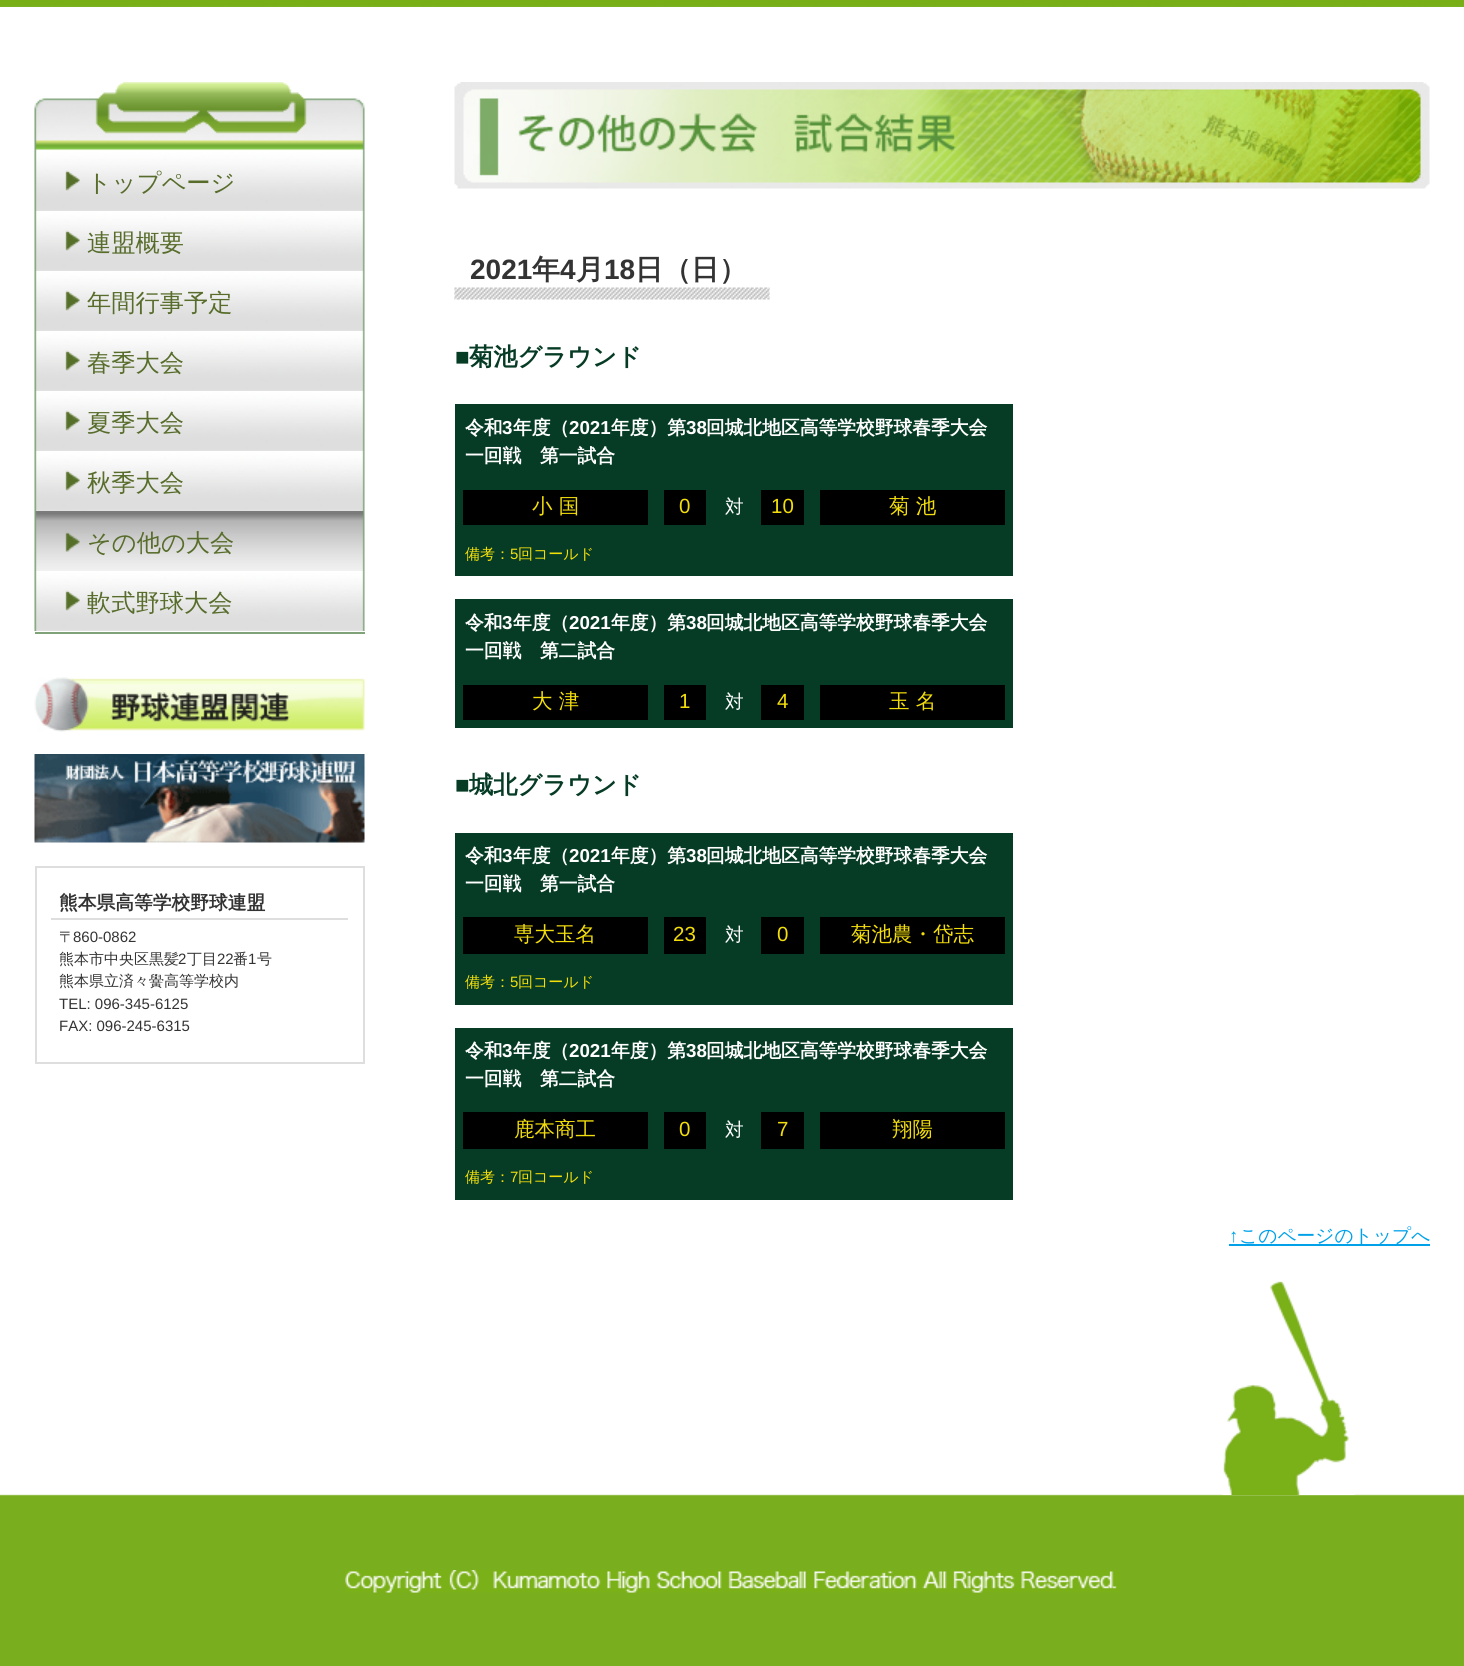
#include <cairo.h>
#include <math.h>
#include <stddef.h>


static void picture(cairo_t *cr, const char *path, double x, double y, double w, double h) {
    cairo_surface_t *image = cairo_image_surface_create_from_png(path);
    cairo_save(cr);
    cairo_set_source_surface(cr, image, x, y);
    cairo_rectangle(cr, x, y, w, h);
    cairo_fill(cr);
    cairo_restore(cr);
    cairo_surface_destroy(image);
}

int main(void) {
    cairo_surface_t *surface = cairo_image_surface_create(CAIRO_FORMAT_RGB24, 1464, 1666);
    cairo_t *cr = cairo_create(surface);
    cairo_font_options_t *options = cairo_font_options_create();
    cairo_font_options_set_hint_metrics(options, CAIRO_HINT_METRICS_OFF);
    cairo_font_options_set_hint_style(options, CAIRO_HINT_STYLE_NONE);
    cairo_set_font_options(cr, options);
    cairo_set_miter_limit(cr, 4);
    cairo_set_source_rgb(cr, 1, 1, 1);
    cairo_paint(cr);
    cairo_set_source_rgb(cr, 0.471, 0.686, 0.086);
    cairo_rectangle(cr, 0, 0, 1464, 5);
    cairo_fill(cr);
    picture(cr, "img1.png", 0, 5, 1464, 2);
    picture(cr, "img2.png", 34, 82, 331, 69);
    cairo_set_source_rgb(cr, 0.498, 0.635, 0.475);
    cairo_rectangle(cr, 35, 632, 330, 2);
    cairo_fill(cr);
    picture(cr, "img3.png", 34, 151, 331, 60);
    cairo_select_font_face(cr, "WenQuanYi Zen Hei Medium", CAIRO_FONT_SLANT_NORMAL, CAIRO_FONT_WEIGHT_NORMAL);
    cairo_set_font_size(cr, 24.25);
    cairo_set_source_rgb(cr, 0.345, 0.427, 0.173);
    cairo_move_to(cr, 87, 191);
    cairo_show_text(cr, "トップページ");
    picture(cr, "img3.png", 34, 211, 331, 60);
    cairo_move_to(cr, 87, 251);
    cairo_show_text(cr, "連盟概要");
    picture(cr, "img3.png", 34, 271, 331, 60);
    cairo_move_to(cr, 87, 311);
    cairo_show_text(cr, "年間行事予定");
    picture(cr, "img3.png", 34, 331, 331, 60);
    cairo_move_to(cr, 87, 371);
    cairo_show_text(cr, "春季大会");
    picture(cr, "img3.png", 34, 391, 331, 60);
    cairo_move_to(cr, 87, 431);
    cairo_show_text(cr, "夏季大会");
    picture(cr, "img3.png", 34, 451, 331, 60);
    cairo_move_to(cr, 87, 491);
    cairo_show_text(cr, "秋季大会");
    picture(cr, "img4.png", 34, 511, 331, 60);
    cairo_move_to(cr, 87, 551);
    cairo_show_text(cr, "その他の大会");
    picture(cr, "img3.png", 34, 571, 331, 60);
    cairo_move_to(cr, 87, 611);
    cairo_show_text(cr, "軟式野球大会");
    picture(cr, "img5.png", 34, 677, 331, 55);
    picture(cr, "img6.png", 34, 754, 331, 89);
    cairo_rectangle(cr, 36, 867, 328, 196);
    cairo_set_source_rgb(cr, 0.871, 0.871, 0.871);
    cairo_stroke(cr);
    cairo_rectangle(cr, 51, 918, 297, 2);
    cairo_fill(cr);
    cairo_select_font_face(cr, "WenQuanYi Zen Hei", CAIRO_FONT_SLANT_NORMAL, CAIRO_FONT_WEIGHT_BOLD);
    cairo_set_font_size(cr, 18.75);
    cairo_set_source_rgb(cr, 0.2, 0.2, 0.2);
    cairo_move_to(cr, 59, 909);
    cairo_show_text(cr, "熊本県高等学校野球連盟");
    cairo_select_font_face(cr, "WenQuanYi Zen Hei Medium", CAIRO_FONT_SLANT_NORMAL, CAIRO_FONT_WEIGHT_NORMAL);
    cairo_set_font_size(cr, 15);
    cairo_move_to(cr, 59, 942);
    cairo_show_text(cr, "〒");
    cairo_select_font_face(cr, "Liberation Sans", CAIRO_FONT_SLANT_NORMAL, CAIRO_FONT_WEIGHT_NORMAL);
    cairo_move_to(cr, 73, 942);
    cairo_show_text(cr, "860-0862");
    cairo_select_font_face(cr, "WenQuanYi Zen Hei Medium", CAIRO_FONT_SLANT_NORMAL, CAIRO_FONT_WEIGHT_NORMAL);
    cairo_move_to(cr, 59, 964);
    cairo_show_text(cr, "熊本市中央区黒髪");
    cairo_select_font_face(cr, "Liberation Sans", CAIRO_FONT_SLANT_NORMAL, CAIRO_FONT_WEIGHT_NORMAL);
    cairo_move_to(cr, 178, 964);
    cairo_show_text(cr, "2");
    cairo_select_font_face(cr, "WenQuanYi Zen Hei Medium", CAIRO_FONT_SLANT_NORMAL, CAIRO_FONT_WEIGHT_NORMAL);
    cairo_move_to(cr, 187, 964);
    cairo_show_text(cr, "丁目");
    cairo_select_font_face(cr, "Liberation Sans", CAIRO_FONT_SLANT_NORMAL, CAIRO_FONT_WEIGHT_NORMAL);
    cairo_move_to(cr, 217, 964);
    cairo_show_text(cr, "22");
    cairo_select_font_face(cr, "WenQuanYi Zen Hei Medium", CAIRO_FONT_SLANT_NORMAL, CAIRO_FONT_WEIGHT_NORMAL);
    cairo_move_to(cr, 233, 964);
    cairo_show_text(cr, "番");
    cairo_select_font_face(cr, "Liberation Sans", CAIRO_FONT_SLANT_NORMAL, CAIRO_FONT_WEIGHT_NORMAL);
    cairo_move_to(cr, 248, 964);
    cairo_show_text(cr, "1");
    cairo_select_font_face(cr, "WenQuanYi Zen Hei Medium", CAIRO_FONT_SLANT_NORMAL, CAIRO_FONT_WEIGHT_NORMAL);
    cairo_move_to(cr, 257, 964);
    cairo_show_text(cr, "号");
    cairo_move_to(cr, 59, 986);
    cairo_show_text(cr, "熊本県立済々黌高等学校内");
    cairo_select_font_face(cr, "Liberation Sans", CAIRO_FONT_SLANT_NORMAL, CAIRO_FONT_WEIGHT_NORMAL);
    cairo_move_to(cr, 59, 1009);
    cairo_show_text(cr, "TEL: 096-345-6125");
    cairo_move_to(cr, 59, 1031);
    cairo_show_text(cr, "FAX: 096-245-6315");
    picture(cr, "img7.png", 454, 82, 976, 107);
    picture(cr, "img8.png", 454, 287, 316, 13);
    cairo_select_font_face(cr, "Liberation Sans", CAIRO_FONT_SLANT_NORMAL, CAIRO_FONT_WEIGHT_BOLD);
    cairo_set_font_size(cr, 28);
    cairo_move_to(cr, 470, 279);
    cairo_show_text(cr, "2021");
    cairo_select_font_face(cr, "WenQuanYi Zen Hei", CAIRO_FONT_SLANT_NORMAL, CAIRO_FONT_WEIGHT_BOLD);
    cairo_move_to(cr, 532, 279);
    cairo_show_text(cr, "年");
    cairo_select_font_face(cr, "Liberation Sans", CAIRO_FONT_SLANT_NORMAL, CAIRO_FONT_WEIGHT_BOLD);
    cairo_move_to(cr, 560, 279);
    cairo_show_text(cr, "4");
    cairo_select_font_face(cr, "WenQuanYi Zen Hei", CAIRO_FONT_SLANT_NORMAL, CAIRO_FONT_WEIGHT_BOLD);
    cairo_move_to(cr, 576, 279);
    cairo_show_text(cr, "月");
    cairo_select_font_face(cr, "Liberation Sans", CAIRO_FONT_SLANT_NORMAL, CAIRO_FONT_WEIGHT_BOLD);
    cairo_move_to(cr, 604, 279);
    cairo_show_text(cr, "18");
    cairo_select_font_face(cr, "WenQuanYi Zen Hei", CAIRO_FONT_SLANT_NORMAL, CAIRO_FONT_WEIGHT_BOLD);
    cairo_move_to(cr, 635, 279);
    cairo_show_text(cr, "日（日）");
    cairo_select_font_face(cr, "Liberation Sans", CAIRO_FONT_SLANT_NORMAL, CAIRO_FONT_WEIGHT_BOLD);
    cairo_set_font_size(cr, 24.25);
    cairo_set_source_rgb(cr, 0.024, 0.231, 0.145);
    cairo_move_to(cr, 455, 365);
    cairo_show_text(cr, "■");
    cairo_select_font_face(cr, "WenQuanYi Zen Hei", CAIRO_FONT_SLANT_NORMAL, CAIRO_FONT_WEIGHT_BOLD);
    cairo_move_to(cr, 469, 365);
    cairo_show_text(cr, "菊池グラウンド");
    cairo_set_source_rgb(cr, 0.024, 0.235, 0.145);
    cairo_rectangle(cr, 455, 404, 558, 78);
    cairo_fill(cr);
    cairo_set_font_size(cr, 18.75);
    cairo_set_source_rgb(cr, 1, 1, 1);
    cairo_move_to(cr, 465, 434);
    cairo_show_text(cr, "令和");
    cairo_select_font_face(cr, "Liberation Sans", CAIRO_FONT_SLANT_NORMAL, CAIRO_FONT_WEIGHT_BOLD);
    cairo_move_to(cr, 502, 434);
    cairo_show_text(cr, "3");
    cairo_select_font_face(cr, "WenQuanYi Zen Hei", CAIRO_FONT_SLANT_NORMAL, CAIRO_FONT_WEIGHT_BOLD);
    cairo_move_to(cr, 513, 434);
    cairo_show_text(cr, "年度（");
    cairo_select_font_face(cr, "Liberation Sans", CAIRO_FONT_SLANT_NORMAL, CAIRO_FONT_WEIGHT_BOLD);
    cairo_move_to(cr, 569, 434);
    cairo_show_text(cr, "2021");
    cairo_select_font_face(cr, "WenQuanYi Zen Hei", CAIRO_FONT_SLANT_NORMAL, CAIRO_FONT_WEIGHT_BOLD);
    cairo_move_to(cr, 611, 434);
    cairo_show_text(cr, "年度）第");
    cairo_select_font_face(cr, "Liberation Sans", CAIRO_FONT_SLANT_NORMAL, CAIRO_FONT_WEIGHT_BOLD);
    cairo_move_to(cr, 686, 434);
    cairo_show_text(cr, "38");
    cairo_select_font_face(cr, "WenQuanYi Zen Hei", CAIRO_FONT_SLANT_NORMAL, CAIRO_FONT_WEIGHT_BOLD);
    cairo_move_to(cr, 706, 434);
    cairo_show_text(cr, "回城北地区高等学校野球春季大会");
    cairo_move_to(cr, 465, 462);
    cairo_show_text(cr, "一回戦　第一試合");
    cairo_set_source_rgb(cr, 0, 0, 0);
    cairo_rectangle(cr, 459, 486, 193, 43);
    cairo_fill_preserve(cr);
    cairo_set_source_rgb(cr, 0.024, 0.235, 0.145);
    cairo_set_line_width(cr, 8);
    cairo_stroke(cr);
    cairo_select_font_face(cr, "WenQuanYi Zen Hei Medium", CAIRO_FONT_SLANT_NORMAL, CAIRO_FONT_WEIGHT_NORMAL);
    cairo_set_font_size(cr, 20.5);
    cairo_set_source_rgb(cr, 0.953, 0.871, 0.043);
    cairo_move_to(cr, 532, 513);
    cairo_show_text(cr, "小 国");
    cairo_set_source_rgb(cr, 0, 0, 0);
    cairo_rectangle(cr, 660, 486, 50, 43);
    cairo_fill_preserve(cr);
    cairo_set_source_rgb(cr, 0.024, 0.235, 0.145);
    cairo_stroke(cr);
    cairo_select_font_face(cr, "Liberation Sans", CAIRO_FONT_SLANT_NORMAL, CAIRO_FONT_WEIGHT_NORMAL);
    cairo_set_source_rgb(cr, 0.953, 0.871, 0.043);
    cairo_move_to(cr, 679, 513);
    cairo_show_text(cr, "0");
    cairo_set_source_rgb(cr, 0.024, 0.235, 0.145);
    cairo_rectangle(cr, 714, 482, 39, 51);
    cairo_fill(cr);
    cairo_select_font_face(cr, "WenQuanYi Zen Hei Medium", CAIRO_FONT_SLANT_NORMAL, CAIRO_FONT_WEIGHT_NORMAL);
    cairo_set_font_size(cr, 18.75);
    cairo_set_source_rgb(cr, 1, 1, 1);
    cairo_move_to(cr, 725, 513);
    cairo_show_text(cr, "対");
    cairo_set_source_rgb(cr, 0, 0, 0);
    cairo_rectangle(cr, 757, 486, 51, 43);
    cairo_fill_preserve(cr);
    cairo_set_source_rgb(cr, 0.024, 0.235, 0.145);
    cairo_stroke(cr);
    cairo_select_font_face(cr, "Liberation Sans", CAIRO_FONT_SLANT_NORMAL, CAIRO_FONT_WEIGHT_NORMAL);
    cairo_set_font_size(cr, 20.5);
    cairo_set_source_rgb(cr, 0.953, 0.871, 0.043);
    cairo_move_to(cr, 771, 513);
    cairo_show_text(cr, "10");
    cairo_set_source_rgb(cr, 0, 0, 0);
    cairo_rectangle(cr, 816, 486, 193, 43);
    cairo_fill_preserve(cr);
    cairo_set_source_rgb(cr, 0.024, 0.235, 0.145);
    cairo_stroke(cr);
    cairo_select_font_face(cr, "WenQuanYi Zen Hei Medium", CAIRO_FONT_SLANT_NORMAL, CAIRO_FONT_WEIGHT_NORMAL);
    cairo_set_source_rgb(cr, 0.953, 0.871, 0.043);
    cairo_move_to(cr, 889, 513);
    cairo_show_text(cr, "菊 池");
    cairo_set_source_rgb(cr, 0.024, 0.235, 0.145);
    cairo_rectangle(cr, 455, 533, 558, 43);
    cairo_fill(cr);
    cairo_set_font_size(cr, 15);
    cairo_set_source_rgb(cr, 0.953, 0.871, 0.043);
    cairo_move_to(cr, 465, 559);
    cairo_show_text(cr, "備考：");
    cairo_select_font_face(cr, "Liberation Sans", CAIRO_FONT_SLANT_NORMAL, CAIRO_FONT_WEIGHT_NORMAL);
    cairo_move_to(cr, 510, 559);
    cairo_show_text(cr, "5");
    cairo_select_font_face(cr, "WenQuanYi Zen Hei Medium", CAIRO_FONT_SLANT_NORMAL, CAIRO_FONT_WEIGHT_NORMAL);
    cairo_move_to(cr, 518, 559);
    cairo_show_text(cr, "回コールド");
    cairo_set_source_rgb(cr, 0.024, 0.235, 0.145);
    cairo_rectangle(cr, 455, 599, 558, 78);
    cairo_fill(cr);
    cairo_select_font_face(cr, "WenQuanYi Zen Hei", CAIRO_FONT_SLANT_NORMAL, CAIRO_FONT_WEIGHT_BOLD);
    cairo_set_font_size(cr, 18.75);
    cairo_set_source_rgb(cr, 1, 1, 1);
    cairo_move_to(cr, 465, 629);
    cairo_show_text(cr, "令和");
    cairo_select_font_face(cr, "Liberation Sans", CAIRO_FONT_SLANT_NORMAL, CAIRO_FONT_WEIGHT_BOLD);
    cairo_move_to(cr, 502, 629);
    cairo_show_text(cr, "3");
    cairo_select_font_face(cr, "WenQuanYi Zen Hei", CAIRO_FONT_SLANT_NORMAL, CAIRO_FONT_WEIGHT_BOLD);
    cairo_move_to(cr, 513, 629);
    cairo_show_text(cr, "年度（");
    cairo_select_font_face(cr, "Liberation Sans", CAIRO_FONT_SLANT_NORMAL, CAIRO_FONT_WEIGHT_BOLD);
    cairo_move_to(cr, 569, 629);
    cairo_show_text(cr, "2021");
    cairo_select_font_face(cr, "WenQuanYi Zen Hei", CAIRO_FONT_SLANT_NORMAL, CAIRO_FONT_WEIGHT_BOLD);
    cairo_move_to(cr, 611, 629);
    cairo_show_text(cr, "年度）第");
    cairo_select_font_face(cr, "Liberation Sans", CAIRO_FONT_SLANT_NORMAL, CAIRO_FONT_WEIGHT_BOLD);
    cairo_move_to(cr, 686, 629);
    cairo_show_text(cr, "38");
    cairo_select_font_face(cr, "WenQuanYi Zen Hei", CAIRO_FONT_SLANT_NORMAL, CAIRO_FONT_WEIGHT_BOLD);
    cairo_move_to(cr, 706, 629);
    cairo_show_text(cr, "回城北地区高等学校野球春季大会");
    cairo_move_to(cr, 465, 657);
    cairo_show_text(cr, "一回戦　第二試合");
    cairo_set_source_rgb(cr, 0, 0, 0);
    cairo_rectangle(cr, 459, 681, 193, 43);
    cairo_fill_preserve(cr);
    cairo_set_source_rgb(cr, 0.024, 0.235, 0.145);
    cairo_stroke(cr);
    cairo_select_font_face(cr, "WenQuanYi Zen Hei Medium", CAIRO_FONT_SLANT_NORMAL, CAIRO_FONT_WEIGHT_NORMAL);
    cairo_set_font_size(cr, 20.5);
    cairo_set_source_rgb(cr, 0.953, 0.871, 0.043);
    cairo_move_to(cr, 532, 708);
    cairo_show_text(cr, "大 津");
    cairo_set_source_rgb(cr, 0, 0, 0);
    cairo_rectangle(cr, 660, 681, 50, 43);
    cairo_fill_preserve(cr);
    cairo_set_source_rgb(cr, 0.024, 0.235, 0.145);
    cairo_stroke(cr);
    cairo_select_font_face(cr, "Liberation Sans", CAIRO_FONT_SLANT_NORMAL, CAIRO_FONT_WEIGHT_NORMAL);
    cairo_set_source_rgb(cr, 0.953, 0.871, 0.043);
    cairo_move_to(cr, 679, 708);
    cairo_show_text(cr, "1");
    cairo_set_source_rgb(cr, 0.024, 0.235, 0.145);
    cairo_rectangle(cr, 714, 677, 39, 51);
    cairo_fill(cr);
    cairo_select_font_face(cr, "WenQuanYi Zen Hei Medium", CAIRO_FONT_SLANT_NORMAL, CAIRO_FONT_WEIGHT_NORMAL);
    cairo_set_font_size(cr, 18.75);
    cairo_set_source_rgb(cr, 1, 1, 1);
    cairo_move_to(cr, 725, 708);
    cairo_show_text(cr, "対");
    cairo_set_source_rgb(cr, 0, 0, 0);
    cairo_rectangle(cr, 757, 681, 51, 43);
    cairo_fill_preserve(cr);
    cairo_set_source_rgb(cr, 0.024, 0.235, 0.145);
    cairo_stroke(cr);
    cairo_select_font_face(cr, "Liberation Sans", CAIRO_FONT_SLANT_NORMAL, CAIRO_FONT_WEIGHT_NORMAL);
    cairo_set_font_size(cr, 20.5);
    cairo_set_source_rgb(cr, 0.953, 0.871, 0.043);
    cairo_move_to(cr, 777, 708);
    cairo_show_text(cr, "4");
    cairo_set_source_rgb(cr, 0, 0, 0);
    cairo_rectangle(cr, 816, 681, 193, 43);
    cairo_fill_preserve(cr);
    cairo_set_source_rgb(cr, 0.024, 0.235, 0.145);
    cairo_stroke(cr);
    cairo_select_font_face(cr, "WenQuanYi Zen Hei Medium", CAIRO_FONT_SLANT_NORMAL, CAIRO_FONT_WEIGHT_NORMAL);
    cairo_set_source_rgb(cr, 0.953, 0.871, 0.043);
    cairo_move_to(cr, 889, 708);
    cairo_show_text(cr, "玉 名");
    cairo_select_font_face(cr, "Liberation Sans", CAIRO_FONT_SLANT_NORMAL, CAIRO_FONT_WEIGHT_BOLD);
    cairo_set_font_size(cr, 24.25);
    cairo_set_source_rgb(cr, 0.024, 0.231, 0.145);
    cairo_move_to(cr, 455, 793);
    cairo_show_text(cr, "■");
    cairo_select_font_face(cr, "WenQuanYi Zen Hei", CAIRO_FONT_SLANT_NORMAL, CAIRO_FONT_WEIGHT_BOLD);
    cairo_move_to(cr, 469, 793);
    cairo_show_text(cr, "城北グラウンド");
    cairo_set_source_rgb(cr, 0.024, 0.235, 0.145);
    cairo_rectangle(cr, 455, 833, 558, 76);
    cairo_fill(cr);
    cairo_set_font_size(cr, 18.75);
    cairo_set_source_rgb(cr, 1, 1, 1);
    cairo_move_to(cr, 465, 862);
    cairo_show_text(cr, "令和");
    cairo_select_font_face(cr, "Liberation Sans", CAIRO_FONT_SLANT_NORMAL, CAIRO_FONT_WEIGHT_BOLD);
    cairo_move_to(cr, 502, 862);
    cairo_show_text(cr, "3");
    cairo_select_font_face(cr, "WenQuanYi Zen Hei", CAIRO_FONT_SLANT_NORMAL, CAIRO_FONT_WEIGHT_BOLD);
    cairo_move_to(cr, 513, 862);
    cairo_show_text(cr, "年度（");
    cairo_select_font_face(cr, "Liberation Sans", CAIRO_FONT_SLANT_NORMAL, CAIRO_FONT_WEIGHT_BOLD);
    cairo_move_to(cr, 569, 862);
    cairo_show_text(cr, "2021");
    cairo_select_font_face(cr, "WenQuanYi Zen Hei", CAIRO_FONT_SLANT_NORMAL, CAIRO_FONT_WEIGHT_BOLD);
    cairo_move_to(cr, 611, 862);
    cairo_show_text(cr, "年度）第");
    cairo_select_font_face(cr, "Liberation Sans", CAIRO_FONT_SLANT_NORMAL, CAIRO_FONT_WEIGHT_BOLD);
    cairo_move_to(cr, 686, 862);
    cairo_show_text(cr, "38");
    cairo_select_font_face(cr, "WenQuanYi Zen Hei", CAIRO_FONT_SLANT_NORMAL, CAIRO_FONT_WEIGHT_BOLD);
    cairo_move_to(cr, 706, 862);
    cairo_show_text(cr, "回城北地区高等学校野球春季大会");
    cairo_move_to(cr, 465, 890);
    cairo_show_text(cr, "一回戦　第一試合");
    cairo_set_source_rgb(cr, 0, 0, 0);
    cairo_rectangle(cr, 459, 913, 193, 45);
    cairo_fill_preserve(cr);
    cairo_set_source_rgb(cr, 0.024, 0.235, 0.145);
    cairo_stroke(cr);
    cairo_select_font_face(cr, "WenQuanYi Zen Hei Medium", CAIRO_FONT_SLANT_NORMAL, CAIRO_FONT_WEIGHT_NORMAL);
    cairo_set_font_size(cr, 20.5);
    cairo_set_source_rgb(cr, 0.953, 0.871, 0.043);
    cairo_move_to(cr, 514, 941);
    cairo_show_text(cr, "専大玉名");
    cairo_set_source_rgb(cr, 0, 0, 0);
    cairo_rectangle(cr, 660, 913, 50, 45);
    cairo_fill_preserve(cr);
    cairo_set_source_rgb(cr, 0.024, 0.235, 0.145);
    cairo_stroke(cr);
    cairo_select_font_face(cr, "Liberation Sans", CAIRO_FONT_SLANT_NORMAL, CAIRO_FONT_WEIGHT_NORMAL);
    cairo_set_source_rgb(cr, 0.953, 0.871, 0.043);
    cairo_move_to(cr, 673, 941);
    cairo_show_text(cr, "23");
    cairo_set_source_rgb(cr, 0.024, 0.235, 0.145);
    cairo_rectangle(cr, 714, 909, 39, 53);
    cairo_fill(cr);
    cairo_select_font_face(cr, "WenQuanYi Zen Hei Medium", CAIRO_FONT_SLANT_NORMAL, CAIRO_FONT_WEIGHT_NORMAL);
    cairo_set_font_size(cr, 18.75);
    cairo_set_source_rgb(cr, 1, 1, 1);
    cairo_move_to(cr, 725, 941);
    cairo_show_text(cr, "対");
    cairo_set_source_rgb(cr, 0, 0, 0);
    cairo_rectangle(cr, 757, 913, 51, 45);
    cairo_fill_preserve(cr);
    cairo_set_source_rgb(cr, 0.024, 0.235, 0.145);
    cairo_stroke(cr);
    cairo_select_font_face(cr, "Liberation Sans", CAIRO_FONT_SLANT_NORMAL, CAIRO_FONT_WEIGHT_NORMAL);
    cairo_set_font_size(cr, 20.5);
    cairo_set_source_rgb(cr, 0.953, 0.871, 0.043);
    cairo_move_to(cr, 777, 941);
    cairo_show_text(cr, "0");
    cairo_set_source_rgb(cr, 0, 0, 0);
    cairo_rectangle(cr, 816, 913, 193, 45);
    cairo_fill_preserve(cr);
    cairo_set_source_rgb(cr, 0.024, 0.235, 0.145);
    cairo_stroke(cr);
    cairo_select_font_face(cr, "WenQuanYi Zen Hei Medium", CAIRO_FONT_SLANT_NORMAL, CAIRO_FONT_WEIGHT_NORMAL);
    cairo_set_source_rgb(cr, 0.953, 0.871, 0.043);
    cairo_move_to(cr, 851, 941);
    cairo_show_text(cr, "菊池農・岱志");
    cairo_set_source_rgb(cr, 0.024, 0.235, 0.145);
    cairo_rectangle(cr, 455, 962, 558, 43);
    cairo_fill(cr);
    cairo_set_font_size(cr, 15);
    cairo_set_source_rgb(cr, 0.953, 0.871, 0.043);
    cairo_move_to(cr, 465, 987);
    cairo_show_text(cr, "備考：");
    cairo_select_font_face(cr, "Liberation Sans", CAIRO_FONT_SLANT_NORMAL, CAIRO_FONT_WEIGHT_NORMAL);
    cairo_move_to(cr, 510, 987);
    cairo_show_text(cr, "5");
    cairo_select_font_face(cr, "WenQuanYi Zen Hei Medium", CAIRO_FONT_SLANT_NORMAL, CAIRO_FONT_WEIGHT_NORMAL);
    cairo_move_to(cr, 518, 987);
    cairo_show_text(cr, "回コールド");
    cairo_set_source_rgb(cr, 0.024, 0.235, 0.145);
    cairo_rectangle(cr, 455, 1028, 558, 76);
    cairo_fill(cr);
    cairo_select_font_face(cr, "WenQuanYi Zen Hei", CAIRO_FONT_SLANT_NORMAL, CAIRO_FONT_WEIGHT_BOLD);
    cairo_set_font_size(cr, 18.75);
    cairo_set_source_rgb(cr, 1, 1, 1);
    cairo_move_to(cr, 465, 1057);
    cairo_show_text(cr, "令和");
    cairo_select_font_face(cr, "Liberation Sans", CAIRO_FONT_SLANT_NORMAL, CAIRO_FONT_WEIGHT_BOLD);
    cairo_move_to(cr, 502, 1057);
    cairo_show_text(cr, "3");
    cairo_select_font_face(cr, "WenQuanYi Zen Hei", CAIRO_FONT_SLANT_NORMAL, CAIRO_FONT_WEIGHT_BOLD);
    cairo_move_to(cr, 513, 1057);
    cairo_show_text(cr, "年度（");
    cairo_select_font_face(cr, "Liberation Sans", CAIRO_FONT_SLANT_NORMAL, CAIRO_FONT_WEIGHT_BOLD);
    cairo_move_to(cr, 569, 1057);
    cairo_show_text(cr, "2021");
    cairo_select_font_face(cr, "WenQuanYi Zen Hei", CAIRO_FONT_SLANT_NORMAL, CAIRO_FONT_WEIGHT_BOLD);
    cairo_move_to(cr, 611, 1057);
    cairo_show_text(cr, "年度）第");
    cairo_select_font_face(cr, "Liberation Sans", CAIRO_FONT_SLANT_NORMAL, CAIRO_FONT_WEIGHT_BOLD);
    cairo_move_to(cr, 686, 1057);
    cairo_show_text(cr, "38");
    cairo_select_font_face(cr, "WenQuanYi Zen Hei", CAIRO_FONT_SLANT_NORMAL, CAIRO_FONT_WEIGHT_BOLD);
    cairo_move_to(cr, 706, 1057);
    cairo_show_text(cr, "回城北地区高等学校野球春季大会");
    cairo_move_to(cr, 465, 1085);
    cairo_show_text(cr, "一回戦　第二試合");
    cairo_set_source_rgb(cr, 0, 0, 0);
    cairo_rectangle(cr, 459, 1108, 193, 45);
    cairo_fill_preserve(cr);
    cairo_set_source_rgb(cr, 0.024, 0.235, 0.145);
    cairo_stroke(cr);
    cairo_select_font_face(cr, "WenQuanYi Zen Hei Medium", CAIRO_FONT_SLANT_NORMAL, CAIRO_FONT_WEIGHT_NORMAL);
    cairo_set_font_size(cr, 20.5);
    cairo_set_source_rgb(cr, 0.953, 0.871, 0.043);
    cairo_move_to(cr, 514, 1136);
    cairo_show_text(cr, "鹿本商工");
    cairo_set_source_rgb(cr, 0, 0, 0);
    cairo_rectangle(cr, 660, 1108, 50, 45);
    cairo_fill_preserve(cr);
    cairo_set_source_rgb(cr, 0.024, 0.235, 0.145);
    cairo_stroke(cr);
    cairo_select_font_face(cr, "Liberation Sans", CAIRO_FONT_SLANT_NORMAL, CAIRO_FONT_WEIGHT_NORMAL);
    cairo_set_source_rgb(cr, 0.953, 0.871, 0.043);
    cairo_move_to(cr, 679, 1136);
    cairo_show_text(cr, "0");
    cairo_set_source_rgb(cr, 0.024, 0.235, 0.145);
    cairo_rectangle(cr, 714, 1104, 39, 53);
    cairo_fill(cr);
    cairo_select_font_face(cr, "WenQuanYi Zen Hei Medium", CAIRO_FONT_SLANT_NORMAL, CAIRO_FONT_WEIGHT_NORMAL);
    cairo_set_font_size(cr, 18.75);
    cairo_set_source_rgb(cr, 1, 1, 1);
    cairo_move_to(cr, 725, 1136);
    cairo_show_text(cr, "対");
    cairo_set_source_rgb(cr, 0, 0, 0);
    cairo_rectangle(cr, 757, 1108, 51, 45);
    cairo_fill_preserve(cr);
    cairo_set_source_rgb(cr, 0.024, 0.235, 0.145);
    cairo_stroke(cr);
    cairo_select_font_face(cr, "Liberation Sans", CAIRO_FONT_SLANT_NORMAL, CAIRO_FONT_WEIGHT_NORMAL);
    cairo_set_font_size(cr, 20.5);
    cairo_set_source_rgb(cr, 0.953, 0.871, 0.043);
    cairo_move_to(cr, 777, 1136);
    cairo_show_text(cr, "7");
    cairo_set_source_rgb(cr, 0, 0, 0);
    cairo_rectangle(cr, 816, 1108, 193, 45);
    cairo_fill_preserve(cr);
    cairo_set_source_rgb(cr, 0.024, 0.235, 0.145);
    cairo_stroke(cr);
    cairo_select_font_face(cr, "WenQuanYi Zen Hei Medium", CAIRO_FONT_SLANT_NORMAL, CAIRO_FONT_WEIGHT_NORMAL);
    cairo_set_source_rgb(cr, 0.953, 0.871, 0.043);
    cairo_move_to(cr, 892, 1136);
    cairo_show_text(cr, "翔陽");
    cairo_set_source_rgb(cr, 0.024, 0.235, 0.145);
    cairo_rectangle(cr, 455, 1157, 558, 43);
    cairo_fill(cr);
    cairo_set_font_size(cr, 15);
    cairo_set_source_rgb(cr, 0.953, 0.871, 0.043);
    cairo_move_to(cr, 465, 1182);
    cairo_show_text(cr, "備考：");
    cairo_select_font_face(cr, "Liberation Sans", CAIRO_FONT_SLANT_NORMAL, CAIRO_FONT_WEIGHT_NORMAL);
    cairo_move_to(cr, 510, 1182);
    cairo_show_text(cr, "7");
    cairo_select_font_face(cr, "WenQuanYi Zen Hei Medium", CAIRO_FONT_SLANT_NORMAL, CAIRO_FONT_WEIGHT_NORMAL);
    cairo_move_to(cr, 518, 1182);
    cairo_show_text(cr, "回コールド");
    cairo_select_font_face(cr, "Liberation Sans", CAIRO_FONT_SLANT_NORMAL, CAIRO_FONT_WEIGHT_NORMAL);
    cairo_set_font_size(cr, 18.75);
    cairo_set_source_rgb(cr, 0, 0.631, 0.914);
    cairo_move_to(cr, 1229, 1242);
    cairo_show_text(cr, "↑");
    cairo_rectangle(cr, 1229, 1244, 201, 2);
    cairo_fill(cr);
    cairo_select_font_face(cr, "WenQuanYi Zen Hei Medium", CAIRO_FONT_SLANT_NORMAL, CAIRO_FONT_WEIGHT_NORMAL);
    cairo_move_to(cr, 1239, 1242);
    cairo_show_text(cr, "このページのトップへ");
    picture(cr, "img9.png", 0, 1494, 1464, 172);
    picture(cr, "img10.png", 1222, 1281, 133, 214);
    picture(cr, "img11.png", 345, 1570, 775, 23);
    cairo_surface_write_to_png(surface, "page.png");
    cairo_font_options_destroy(options);
    cairo_destroy(cr);
    cairo_surface_destroy(surface);
    return 0;
}
